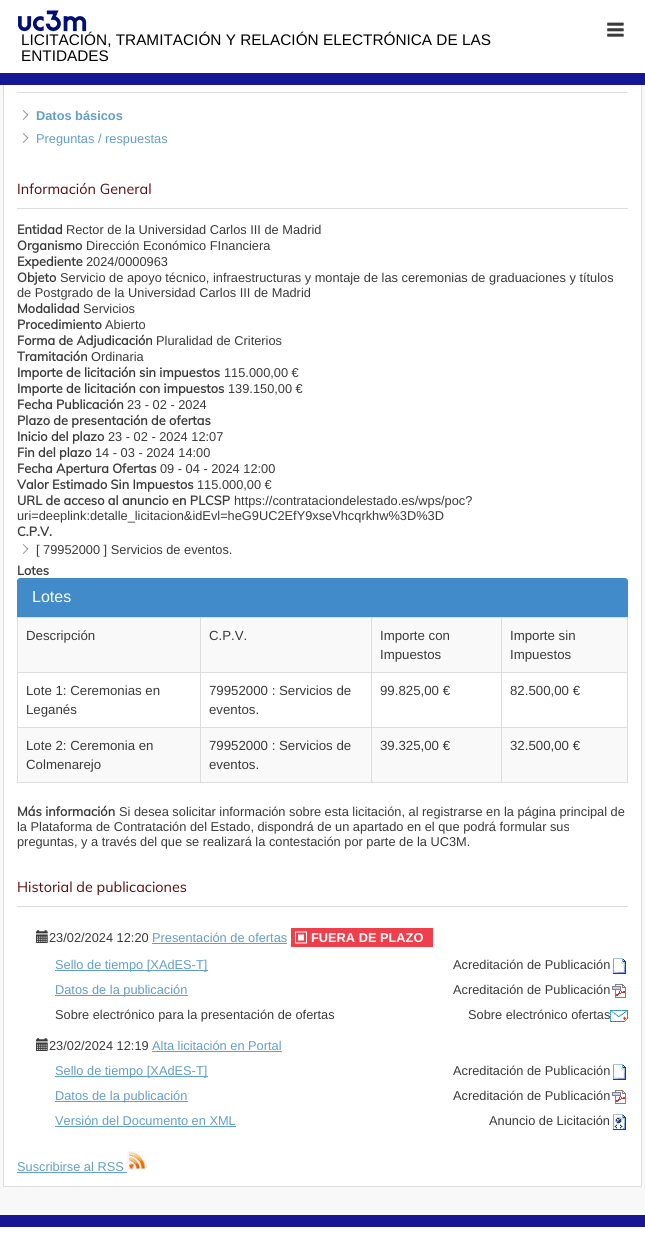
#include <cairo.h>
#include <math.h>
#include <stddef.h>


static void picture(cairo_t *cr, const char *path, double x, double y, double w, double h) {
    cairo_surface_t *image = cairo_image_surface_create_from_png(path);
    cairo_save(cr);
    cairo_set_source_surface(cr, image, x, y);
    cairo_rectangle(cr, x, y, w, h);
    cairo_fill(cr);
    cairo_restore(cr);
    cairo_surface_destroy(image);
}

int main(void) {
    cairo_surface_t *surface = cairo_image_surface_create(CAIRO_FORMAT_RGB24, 645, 1243);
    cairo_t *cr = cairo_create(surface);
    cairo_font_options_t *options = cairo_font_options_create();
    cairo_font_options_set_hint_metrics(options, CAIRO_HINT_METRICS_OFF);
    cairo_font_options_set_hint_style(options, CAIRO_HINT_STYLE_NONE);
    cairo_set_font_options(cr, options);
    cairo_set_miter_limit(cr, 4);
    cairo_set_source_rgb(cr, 0.969, 0.969, 0.969);
    cairo_paint(cr);
    cairo_set_source_rgb(cr, 1, 1, 1);
    cairo_rectangle(cr, 4, 85, 637, 1101);
    cairo_fill(cr);
    cairo_rectangle(cr, 3.5, 27.5, 638, 1159);
    cairo_set_source_rgb(cr, 0.867, 0.867, 0.867);
    cairo_set_line_width(cr, 1);
    cairo_stroke(cr);
    cairo_set_source_rgb(cr, 1, 1, 1);
    cairo_rectangle(cr, 0, 0, 645, 73);
    cairo_fill(cr);
    cairo_set_source_rgb(cr, 0.09, 0.09, 0.588);
    cairo_rectangle(cr, 0, 73, 645, 12);
    cairo_fill(cr);
    picture(cr, "img1.png", 18, 10, 69, 22);
    cairo_select_font_face(cr, "Liberation Sans", CAIRO_FONT_SLANT_NORMAL, CAIRO_FONT_WEIGHT_NORMAL);
    cairo_set_font_size(cr, 15.35);
    cairo_set_source_rgb(cr, 0, 0, 0);
    cairo_move_to(cr, 21, 45);
    cairo_show_text(cr, "LICITACIÓN, TRAMITACIÓN Y RELACIÓN ELECTRÓNICA DE LAS");
    cairo_move_to(cr, 21, 61);
    cairo_show_text(cr, "ENTIDADES");
    picture(cr, "img2.png", 607, 22, 17, 15);
    cairo_set_source_rgb(cr, 0.867, 0.867, 0.867);
    cairo_rectangle(cr, 17, 92, 611, 1);
    cairo_fill(cr);
    picture(cr, "img3.png", 22, 110, 7, 10);
    cairo_select_font_face(cr, "Liberation Sans", CAIRO_FONT_SLANT_NORMAL, CAIRO_FONT_WEIGHT_BOLD);
    cairo_set_font_size(cr, 12.8);
    cairo_set_source_rgb(cr, 0.388, 0.62, 0.784);
    cairo_move_to(cr, 36, 120);
    cairo_show_text(cr, "Datos básicos");
    picture(cr, "img3.png", 22, 133, 7, 10);
    cairo_select_font_face(cr, "Liberation Sans", CAIRO_FONT_SLANT_NORMAL, CAIRO_FONT_WEIGHT_NORMAL);
    cairo_move_to(cr, 36, 143);
    cairo_show_text(cr, "Preguntas / respuestas");
    cairo_set_source_rgb(cr, 0.867, 0.867, 0.867);
    cairo_rectangle(cr, 17, 208, 611, 1);
    cairo_fill(cr);
    cairo_select_font_face(cr, "Muli", CAIRO_FONT_SLANT_NORMAL, CAIRO_FONT_WEIGHT_NORMAL);
    cairo_set_font_size(cr, 14.4);
    cairo_set_source_rgb(cr, 0.345, 0.047, 0.047);
    cairo_move_to(cr, 17, 194);
    cairo_show_text(cr, "Información General");
    cairo_select_font_face(cr, "Muli", CAIRO_FONT_SLANT_NORMAL, CAIRO_FONT_WEIGHT_BOLD);
    cairo_set_font_size(cr, 12.8);
    cairo_set_source_rgb(cr, 0.227, 0.227, 0.227);
    cairo_move_to(cr, 17, 234);
    cairo_show_text(cr, "Entidad");
    cairo_select_font_face(cr, "Liberation Sans", CAIRO_FONT_SLANT_NORMAL, CAIRO_FONT_WEIGHT_NORMAL);
    cairo_move_to(cr, 66, 234);
    cairo_show_text(cr, "Rector de la Universidad Carlos III de Madrid");
    cairo_select_font_face(cr, "Muli", CAIRO_FONT_SLANT_NORMAL, CAIRO_FONT_WEIGHT_BOLD);
    cairo_move_to(cr, 17, 250);
    cairo_show_text(cr, "Organismo");
    cairo_select_font_face(cr, "Liberation Sans", CAIRO_FONT_SLANT_NORMAL, CAIRO_FONT_WEIGHT_NORMAL);
    cairo_move_to(cr, 86, 250);
    cairo_show_text(cr, "Dirección Económico FInanciera");
    cairo_select_font_face(cr, "Muli", CAIRO_FONT_SLANT_NORMAL, CAIRO_FONT_WEIGHT_BOLD);
    cairo_move_to(cr, 17, 266);
    cairo_show_text(cr, "Expediente");
    cairo_select_font_face(cr, "Liberation Sans", CAIRO_FONT_SLANT_NORMAL, CAIRO_FONT_WEIGHT_NORMAL);
    cairo_move_to(cr, 86, 266);
    cairo_show_text(cr, "2024/0000963");
    cairo_select_font_face(cr, "Muli", CAIRO_FONT_SLANT_NORMAL, CAIRO_FONT_WEIGHT_BOLD);
    cairo_move_to(cr, 17, 282);
    cairo_show_text(cr, "Objeto");
    cairo_select_font_face(cr, "Liberation Sans", CAIRO_FONT_SLANT_NORMAL, CAIRO_FONT_WEIGHT_NORMAL);
    cairo_move_to(cr, 60, 282);
    cairo_show_text(cr, "Servicio de apoyo técnico, infraestructuras y montaje de las ceremonias de graduaciones y títulos");
    cairo_move_to(cr, 17, 297);
    cairo_show_text(cr, "de Postgrado de la Universidad Carlos III de Madrid");
    cairo_select_font_face(cr, "Muli", CAIRO_FONT_SLANT_NORMAL, CAIRO_FONT_WEIGHT_BOLD);
    cairo_move_to(cr, 17, 313);
    cairo_show_text(cr, "Modalidad");
    cairo_select_font_face(cr, "Liberation Sans", CAIRO_FONT_SLANT_NORMAL, CAIRO_FONT_WEIGHT_NORMAL);
    cairo_move_to(cr, 83, 313);
    cairo_show_text(cr, "Servicios");
    cairo_select_font_face(cr, "Muli", CAIRO_FONT_SLANT_NORMAL, CAIRO_FONT_WEIGHT_BOLD);
    cairo_move_to(cr, 17, 329);
    cairo_show_text(cr, "Procedimiento");
    cairo_select_font_face(cr, "Liberation Sans", CAIRO_FONT_SLANT_NORMAL, CAIRO_FONT_WEIGHT_NORMAL);
    cairo_move_to(cr, 105, 329);
    cairo_show_text(cr, "Abierto");
    cairo_select_font_face(cr, "Muli", CAIRO_FONT_SLANT_NORMAL, CAIRO_FONT_WEIGHT_BOLD);
    cairo_move_to(cr, 17, 345);
    cairo_show_text(cr, "Forma de Adjudicación");
    cairo_select_font_face(cr, "Liberation Sans", CAIRO_FONT_SLANT_NORMAL, CAIRO_FONT_WEIGHT_NORMAL);
    cairo_move_to(cr, 156, 345);
    cairo_show_text(cr, "Pluralidad de Criterios");
    cairo_select_font_face(cr, "Muli", CAIRO_FONT_SLANT_NORMAL, CAIRO_FONT_WEIGHT_BOLD);
    cairo_move_to(cr, 17, 361);
    cairo_show_text(cr, "Tramitación");
    cairo_select_font_face(cr, "Liberation Sans", CAIRO_FONT_SLANT_NORMAL, CAIRO_FONT_WEIGHT_NORMAL);
    cairo_move_to(cr, 91, 361);
    cairo_show_text(cr, "Ordinaria");
    cairo_select_font_face(cr, "Muli", CAIRO_FONT_SLANT_NORMAL, CAIRO_FONT_WEIGHT_BOLD);
    cairo_move_to(cr, 17, 377);
    cairo_show_text(cr, "Importe de licitación sin impuestos");
    cairo_select_font_face(cr, "Liberation Sans", CAIRO_FONT_SLANT_NORMAL, CAIRO_FONT_WEIGHT_NORMAL);
    cairo_move_to(cr, 224, 377);
    cairo_show_text(cr, "115.000,00 €");
    cairo_select_font_face(cr, "Muli", CAIRO_FONT_SLANT_NORMAL, CAIRO_FONT_WEIGHT_BOLD);
    cairo_move_to(cr, 17, 393);
    cairo_show_text(cr, "Importe de licitación con impuestos");
    cairo_select_font_face(cr, "Liberation Sans", CAIRO_FONT_SLANT_NORMAL, CAIRO_FONT_WEIGHT_NORMAL);
    cairo_move_to(cr, 228, 393);
    cairo_show_text(cr, "139.150,00 €");
    cairo_select_font_face(cr, "Muli", CAIRO_FONT_SLANT_NORMAL, CAIRO_FONT_WEIGHT_BOLD);
    cairo_move_to(cr, 17, 409);
    cairo_show_text(cr, "Fecha Publicación");
    cairo_select_font_face(cr, "Liberation Sans", CAIRO_FONT_SLANT_NORMAL, CAIRO_FONT_WEIGHT_NORMAL);
    cairo_move_to(cr, 127, 409);
    cairo_show_text(cr, "23 - 02 - 2024");
    cairo_select_font_face(cr, "Muli", CAIRO_FONT_SLANT_NORMAL, CAIRO_FONT_WEIGHT_BOLD);
    cairo_move_to(cr, 17, 425);
    cairo_show_text(cr, "Plazo de presentación de ofertas");
    cairo_move_to(cr, 17, 441);
    cairo_show_text(cr, "Inicio del plazo");
    cairo_select_font_face(cr, "Liberation Sans", CAIRO_FONT_SLANT_NORMAL, CAIRO_FONT_WEIGHT_NORMAL);
    cairo_move_to(cr, 108, 441);
    cairo_show_text(cr, "23 - 02 - 2024 12:07");
    cairo_select_font_face(cr, "Muli", CAIRO_FONT_SLANT_NORMAL, CAIRO_FONT_WEIGHT_BOLD);
    cairo_move_to(cr, 17, 457);
    cairo_show_text(cr, "Fin del plazo");
    cairo_select_font_face(cr, "Liberation Sans", CAIRO_FONT_SLANT_NORMAL, CAIRO_FONT_WEIGHT_NORMAL);
    cairo_move_to(cr, 95, 457);
    cairo_show_text(cr, "14 - 03 - 2024 14:00");
    cairo_select_font_face(cr, "Muli", CAIRO_FONT_SLANT_NORMAL, CAIRO_FONT_WEIGHT_BOLD);
    cairo_move_to(cr, 17, 473);
    cairo_show_text(cr, "Fecha Apertura Ofertas");
    cairo_select_font_face(cr, "Liberation Sans", CAIRO_FONT_SLANT_NORMAL, CAIRO_FONT_WEIGHT_NORMAL);
    cairo_move_to(cr, 160, 473);
    cairo_show_text(cr, "09 - 04 - 2024 12:00");
    cairo_select_font_face(cr, "Muli", CAIRO_FONT_SLANT_NORMAL, CAIRO_FONT_WEIGHT_BOLD);
    cairo_move_to(cr, 17, 489);
    cairo_show_text(cr, "Valor Estimado Sin Impuestos");
    cairo_select_font_face(cr, "Liberation Sans", CAIRO_FONT_SLANT_NORMAL, CAIRO_FONT_WEIGHT_NORMAL);
    cairo_move_to(cr, 197, 489);
    cairo_show_text(cr, "115.000,00 €");
    cairo_select_font_face(cr, "Muli", CAIRO_FONT_SLANT_NORMAL, CAIRO_FONT_WEIGHT_BOLD);
    cairo_move_to(cr, 17, 505);
    cairo_show_text(cr, "URL de acceso al anuncio en PLCSP");
    cairo_select_font_face(cr, "Liberation Sans", CAIRO_FONT_SLANT_NORMAL, CAIRO_FONT_WEIGHT_NORMAL);
    cairo_move_to(cr, 234, 505);
    cairo_show_text(cr, "https://contrataciondelestado.es/wps/poc?");
    cairo_move_to(cr, 17, 520);
    cairo_show_text(cr, "uri=deeplink:detalle_licitacion&idEvl=heG9UC2EfY9xseVhcqrkhw%3D%3D");
    cairo_select_font_face(cr, "Muli", CAIRO_FONT_SLANT_NORMAL, CAIRO_FONT_WEIGHT_BOLD);
    cairo_move_to(cr, 17, 536);
    cairo_show_text(cr, "C.P.V.");
    picture(cr, "img3.png", 22, 544, 7, 10);
    cairo_select_font_face(cr, "Liberation Sans", CAIRO_FONT_SLANT_NORMAL, CAIRO_FONT_WEIGHT_NORMAL);
    cairo_move_to(cr, 36, 554);
    cairo_show_text(cr, "[ 79952000 ] Servicios de eventos.");
    cairo_select_font_face(cr, "Muli", CAIRO_FONT_SLANT_NORMAL, CAIRO_FONT_WEIGHT_BOLD);
    cairo_move_to(cr, 17, 575);
    cairo_show_text(cr, "Lotes");
    cairo_set_source_rgb(cr, 0.259, 0.545, 0.792);
    cairo_new_path(cr);
    cairo_move_to(cr, 20, 578);
    cairo_line_to(cr, 625, 578);
    cairo_curve_to(cr, 626.5, 578, 628, 579.5, 628, 581);
    cairo_line_to(cr, 628, 617);
    cairo_line_to(cr, 17, 617);
    cairo_line_to(cr, 17, 581);
    cairo_curve_to(cr, 17, 579.5, 18.5, 578, 20, 578);
    cairo_close_path(cr);
    cairo_fill(cr);
    cairo_select_font_face(cr, "Liberation Sans", CAIRO_FONT_SLANT_NORMAL, CAIRO_FONT_WEIGHT_NORMAL);
    cairo_set_font_size(cr, 16);
    cairo_set_source_rgb(cr, 1, 1, 1);
    cairo_move_to(cr, 32, 602);
    cairo_show_text(cr, "Lotes");
    cairo_set_source_rgb(cr, 0.976, 0.976, 0.976);
    cairo_rectangle(cr, 18, 618, 609, 54);
    cairo_fill(cr);
    cairo_set_source_rgb(cr, 0.867, 0.867, 0.867);
    cairo_rectangle(cr, 501, 617, 127, 1);
    cairo_fill(cr);
    cairo_rectangle(cr, 501, 672, 127, 1);
    cairo_fill(cr);
    cairo_rectangle(cr, 501, 727, 127, 1);
    cairo_fill(cr);
    cairo_set_source_rgb(cr, 0.976, 0.976, 0.976);
    cairo_rectangle(cr, 18, 728, 609, 54);
    cairo_fill(cr);
    cairo_set_source_rgb(cr, 0.867, 0.867, 0.867);
    cairo_rectangle(cr, 627, 727, 1, 56);
    cairo_fill(cr);
    cairo_rectangle(cr, 501, 782, 127, 1);
    cairo_fill(cr);
    cairo_rectangle(cr, 501, 727, 1, 56);
    cairo_fill(cr);
    cairo_rectangle(cr, 371, 727, 131, 1);
    cairo_fill(cr);
    cairo_rectangle(cr, 501, 672, 1, 56);
    cairo_fill(cr);
    cairo_rectangle(cr, 371, 672, 131, 1);
    cairo_fill(cr);
    cairo_rectangle(cr, 501, 617, 1, 56);
    cairo_fill(cr);
    cairo_rectangle(cr, 371, 617, 131, 1);
    cairo_fill(cr);
    cairo_rectangle(cr, 371, 782, 131, 1);
    cairo_fill(cr);
    cairo_rectangle(cr, 371, 727, 1, 56);
    cairo_fill(cr);
    cairo_rectangle(cr, 200, 727, 172, 1);
    cairo_fill(cr);
    cairo_rectangle(cr, 371, 672, 1, 56);
    cairo_fill(cr);
    cairo_rectangle(cr, 200, 672, 172, 1);
    cairo_fill(cr);
    cairo_rectangle(cr, 371, 617, 1, 56);
    cairo_fill(cr);
    cairo_rectangle(cr, 200, 617, 172, 1);
    cairo_fill(cr);
    cairo_rectangle(cr, 200, 782, 172, 1);
    cairo_fill(cr);
    cairo_rectangle(cr, 200, 727, 1, 56);
    cairo_fill(cr);
    cairo_rectangle(cr, 17, 727, 184, 1);
    cairo_fill(cr);
    cairo_rectangle(cr, 200, 672, 1, 56);
    cairo_fill(cr);
    cairo_rectangle(cr, 17, 672, 184, 1);
    cairo_fill(cr);
    cairo_rectangle(cr, 200, 617, 1, 56);
    cairo_fill(cr);
    cairo_rectangle(cr, 17, 617, 184, 1);
    cairo_fill(cr);
    cairo_rectangle(cr, 17, 782, 184, 1);
    cairo_fill(cr);
    cairo_rectangle(cr, 17, 727, 1, 56);
    cairo_fill(cr);
    cairo_rectangle(cr, 17, 672, 1, 56);
    cairo_fill(cr);
    cairo_rectangle(cr, 17, 617, 1, 56);
    cairo_fill(cr);
    cairo_set_font_size(cr, 13.25);
    cairo_set_source_rgb(cr, 0.227, 0.227, 0.227);
    cairo_move_to(cr, 26, 640);
    cairo_show_text(cr, "Descripción");
    cairo_move_to(cr, 209, 640);
    cairo_show_text(cr, "C.P.V.");
    cairo_move_to(cr, 380, 640);
    cairo_show_text(cr, "Importe con");
    cairo_move_to(cr, 380, 659);
    cairo_show_text(cr, "Impuestos");
    cairo_set_source_rgb(cr, 0.867, 0.867, 0.867);
    cairo_rectangle(cr, 627, 672, 1, 56);
    cairo_fill(cr);
    cairo_rectangle(cr, 627, 617, 1, 56);
    cairo_fill(cr);
    cairo_set_source_rgb(cr, 0.227, 0.227, 0.227);
    cairo_move_to(cr, 510, 640);
    cairo_show_text(cr, "Importe sin");
    cairo_move_to(cr, 510, 659);
    cairo_show_text(cr, "Impuestos");
    cairo_move_to(cr, 26, 695);
    cairo_show_text(cr, "Lote 1: Ceremonias en");
    cairo_move_to(cr, 26, 714);
    cairo_show_text(cr, "Leganés");
    cairo_move_to(cr, 209, 695);
    cairo_show_text(cr, "79952000 : Servicios de");
    cairo_move_to(cr, 209, 714);
    cairo_show_text(cr, "eventos.");
    cairo_move_to(cr, 380, 695);
    cairo_show_text(cr, "99.825,00 €");
    cairo_move_to(cr, 510, 695);
    cairo_show_text(cr, "82.500,00 €");
    cairo_move_to(cr, 26, 750);
    cairo_show_text(cr, "Lote 2: Ceremonia en");
    cairo_move_to(cr, 26, 769);
    cairo_show_text(cr, "Colmenarejo");
    cairo_move_to(cr, 209, 750);
    cairo_show_text(cr, "79952000 : Servicios de");
    cairo_move_to(cr, 209, 769);
    cairo_show_text(cr, "eventos.");
    cairo_move_to(cr, 380, 750);
    cairo_show_text(cr, "39.325,00 €");
    cairo_move_to(cr, 510, 750);
    cairo_show_text(cr, "32.500,00 €");
    cairo_select_font_face(cr, "Muli", CAIRO_FONT_SLANT_NORMAL, CAIRO_FONT_WEIGHT_BOLD);
    cairo_set_font_size(cr, 12.8);
    cairo_move_to(cr, 17, 816);
    cairo_show_text(cr, "Más información");
    cairo_select_font_face(cr, "Liberation Sans", CAIRO_FONT_SLANT_NORMAL, CAIRO_FONT_WEIGHT_NORMAL);
    cairo_move_to(cr, 119, 816);
    cairo_show_text(cr, "Si desea solicitar información sobre esta licitación, al registrarse en la página principal de");
    cairo_move_to(cr, 17, 831);
    cairo_show_text(cr, "la Plataforma de Contratación del Estado, dispondrá de un apartado en el que podrá formular sus");
    cairo_move_to(cr, 17, 846);
    cairo_show_text(cr, "preguntas, y a través del que se realizará la contestación por parte de la UC3M.");
    cairo_set_source_rgb(cr, 0.867, 0.867, 0.867);
    cairo_rectangle(cr, 17, 906, 611, 1);
    cairo_fill(cr);
    cairo_select_font_face(cr, "Muli", CAIRO_FONT_SLANT_NORMAL, CAIRO_FONT_WEIGHT_NORMAL);
    cairo_set_font_size(cr, 14.4);
    cairo_set_source_rgb(cr, 0.345, 0.047, 0.047);
    cairo_move_to(cr, 17, 892);
    cairo_show_text(cr, "Historial de publicaciones");
    picture(cr, "img4.png", 36, 930, 12, 13);
    cairo_select_font_face(cr, "Liberation Sans", CAIRO_FONT_SLANT_NORMAL, CAIRO_FONT_WEIGHT_NORMAL);
    cairo_set_font_size(cr, 12.8);
    cairo_set_source_rgb(cr, 0.227, 0.227, 0.227);
    cairo_move_to(cr, 49, 942);
    cairo_show_text(cr, "23/02/2024 12:20");
    cairo_set_source_rgb(cr, 0.388, 0.62, 0.784);
    cairo_move_to(cr, 152, 942);
    cairo_show_text(cr, "Presentación de ofertas");
    cairo_rectangle(cr, 152, 943, 135, 1);
    cairo_fill(cr);
    cairo_set_source_rgb(cr, 0.941, 0.243, 0.29);
    cairo_rectangle(cr, 291, 928, 142, 19);
    cairo_fill(cr);
    picture(cr, "img5.png", 295, 931, 12, 13);
    cairo_select_font_face(cr, "Liberation Sans", CAIRO_FONT_SLANT_NORMAL, CAIRO_FONT_WEIGHT_BOLD);
    cairo_set_source_rgb(cr, 1, 1, 1);
    cairo_move_to(cr, 311, 942);
    cairo_show_text(cr, "FUERA DE PLAZO");
    cairo_set_source_rgb(cr, 0.388, 0.62, 0.784);
    cairo_rectangle(cr, 55, 970, 153, 1);
    cairo_fill(cr);
    cairo_select_font_face(cr, "Liberation Sans", CAIRO_FONT_SLANT_NORMAL, CAIRO_FONT_WEIGHT_NORMAL);
    cairo_move_to(cr, 55, 969);
    cairo_show_text(cr, "Sello de tiempo [XAdES-T]");
    cairo_set_source_rgb(cr, 0.227, 0.227, 0.227);
    cairo_move_to(cr, 453, 969);
    cairo_show_text(cr, "Acreditación de Publicación");
    picture(cr, "img6.png", 613, 958, 13, 16);
    cairo_set_source_rgb(cr, 0.388, 0.62, 0.784);
    cairo_rectangle(cr, 55, 995, 133, 1);
    cairo_fill(cr);
    cairo_move_to(cr, 55, 994);
    cairo_show_text(cr, "Datos de la publicación");
    cairo_set_source_rgb(cr, 0.227, 0.227, 0.227);
    cairo_move_to(cr, 453, 994);
    cairo_show_text(cr, "Acreditación de Publicación");
    picture(cr, "img7.png", 612, 984, 14, 14);
    cairo_move_to(cr, 55, 1019);
    cairo_show_text(cr, "Sobre electrónico para la presentación de ofertas");
    cairo_move_to(cr, 468, 1019);
    cairo_show_text(cr, "Sobre electrónico ofertas");
    picture(cr, "img8.png", 610, 1010, 18, 12);
    picture(cr, "img4.png", 36, 1038, 12, 13);
    cairo_move_to(cr, 49, 1050);
    cairo_show_text(cr, "23/02/2024 12:19");
    cairo_set_source_rgb(cr, 0.388, 0.62, 0.784);
    cairo_move_to(cr, 152, 1050);
    cairo_show_text(cr, "Alta licitación en Portal");
    cairo_rectangle(cr, 152, 1051, 130, 1);
    cairo_fill(cr);
    cairo_rectangle(cr, 55, 1076, 153, 1);
    cairo_fill(cr);
    cairo_move_to(cr, 55, 1075);
    cairo_show_text(cr, "Sello de tiempo [XAdES-T]");
    cairo_set_source_rgb(cr, 0.227, 0.227, 0.227);
    cairo_move_to(cr, 453, 1075);
    cairo_show_text(cr, "Acreditación de Publicación");
    picture(cr, "img6.png", 613, 1064, 13, 16);
    cairo_set_source_rgb(cr, 0.388, 0.62, 0.784);
    cairo_rectangle(cr, 55, 1101, 133, 1);
    cairo_fill(cr);
    cairo_move_to(cr, 55, 1100);
    cairo_show_text(cr, "Datos de la publicación");
    cairo_set_source_rgb(cr, 0.227, 0.227, 0.227);
    cairo_move_to(cr, 453, 1100);
    cairo_show_text(cr, "Acreditación de Publicación");
    picture(cr, "img7.png", 612, 1090, 14, 14);
    cairo_set_source_rgb(cr, 0.388, 0.62, 0.784);
    cairo_move_to(cr, 55, 1125);
    cairo_show_text(cr, "Versión del Documento en XML");
    cairo_rectangle(cr, 55, 1126, 181, 1);
    cairo_fill(cr);
    cairo_set_source_rgb(cr, 0.227, 0.227, 0.227);
    cairo_move_to(cr, 489, 1125);
    cairo_show_text(cr, "Anuncio de Licitación");
    picture(cr, "img9.png", 613, 1114, 13, 16);
    cairo_set_source_rgb(cr, 0.388, 0.62, 0.784);
    cairo_move_to(cr, 17, 1171);
    cairo_show_text(cr, "Suscribirse al RSS");
    cairo_rectangle(cr, 17, 1172, 110, 1);
    cairo_fill(cr);
    picture(cr, "img10.png", 127, 1151, 20, 20);
    cairo_set_source_rgb(cr, 1, 1, 1);
    cairo_rectangle(cr, 0, 1227, 645, 16);
    cairo_fill(cr);
    cairo_set_source_rgb(cr, 0.09, 0.09, 0.588);
    cairo_rectangle(cr, 0, 1215, 645, 12);
    cairo_fill(cr);
    cairo_surface_write_to_png(surface, "page.png");
    cairo_font_options_destroy(options);
    cairo_destroy(cr);
    cairo_surface_destroy(surface);
    return 0;
}
